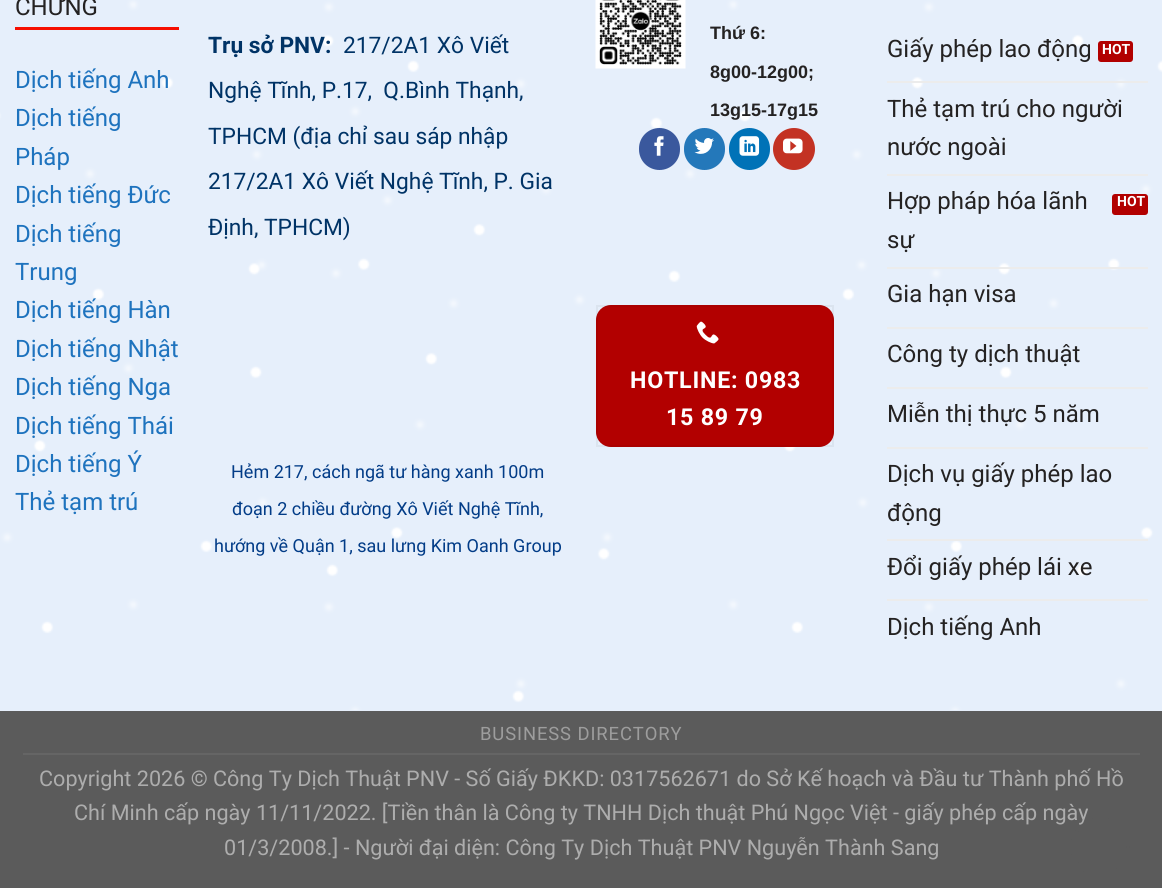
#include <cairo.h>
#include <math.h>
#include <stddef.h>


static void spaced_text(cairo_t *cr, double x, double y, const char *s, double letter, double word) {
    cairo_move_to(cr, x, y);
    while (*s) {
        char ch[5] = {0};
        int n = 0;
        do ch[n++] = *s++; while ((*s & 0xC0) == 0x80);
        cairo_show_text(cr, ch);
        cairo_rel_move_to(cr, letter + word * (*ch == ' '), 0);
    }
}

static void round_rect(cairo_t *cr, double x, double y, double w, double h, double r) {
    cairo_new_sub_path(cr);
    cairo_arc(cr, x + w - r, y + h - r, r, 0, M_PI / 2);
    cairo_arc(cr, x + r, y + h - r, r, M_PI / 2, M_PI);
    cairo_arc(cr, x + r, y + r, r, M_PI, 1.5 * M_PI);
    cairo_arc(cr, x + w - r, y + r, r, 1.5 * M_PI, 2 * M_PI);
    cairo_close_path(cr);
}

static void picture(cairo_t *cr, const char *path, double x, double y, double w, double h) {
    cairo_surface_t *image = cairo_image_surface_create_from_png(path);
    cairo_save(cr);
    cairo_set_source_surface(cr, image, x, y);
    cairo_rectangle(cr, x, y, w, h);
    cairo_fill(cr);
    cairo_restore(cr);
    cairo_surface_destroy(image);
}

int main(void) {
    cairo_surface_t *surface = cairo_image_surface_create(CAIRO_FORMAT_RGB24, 1162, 888);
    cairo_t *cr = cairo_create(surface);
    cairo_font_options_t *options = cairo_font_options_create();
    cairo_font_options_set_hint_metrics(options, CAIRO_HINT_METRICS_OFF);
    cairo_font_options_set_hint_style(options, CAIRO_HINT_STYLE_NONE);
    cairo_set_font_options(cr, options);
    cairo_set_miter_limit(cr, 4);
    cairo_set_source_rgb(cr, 0.357, 0.357, 0.357);
    cairo_paint(cr);
    cairo_set_source_rgb(cr, 0.902, 0.937, 0.984);
    cairo_rectangle(cr, 0, 0, 1162, 711);
    cairo_fill(cr);
    picture(cr, "img1.png", 0, 0, 1162, 710);
    cairo_set_source_rgb(cr, 0.961, 0.059, 0.004);
    cairo_rectangle(cr, 15, 27, 164, 3);
    cairo_fill(cr);
    cairo_select_font_face(cr, "Roboto", CAIRO_FONT_SLANT_NORMAL, CAIRO_FONT_WEIGHT_NORMAL);
    cairo_set_font_size(cr, 24);
    cairo_set_source_rgb(cr, 0.141, 0.133, 0.133);
    cairo_move_to(cr, 15, 15);
    cairo_show_text(cr, "CHỨNG");
    cairo_set_source_rgb(cr, 0.118, 0.451, 0.745);
    cairo_move_to(cr, 15, 88);
    cairo_show_text(cr, "Dịch tiếng Anh");
    cairo_move_to(cr, 15, 126);
    cairo_show_text(cr, "Dịch tiếng");
    cairo_move_to(cr, 15, 165);
    cairo_show_text(cr, "Pháp");
    cairo_move_to(cr, 15, 203);
    cairo_show_text(cr, "Dịch tiếng Đức");
    cairo_move_to(cr, 15, 242);
    cairo_show_text(cr, "Dịch tiếng");
    cairo_move_to(cr, 15, 280);
    cairo_show_text(cr, "Trung");
    cairo_move_to(cr, 15, 318);
    cairo_show_text(cr, "Dịch tiếng Hàn");
    cairo_move_to(cr, 15, 357);
    cairo_show_text(cr, "Dịch tiếng Nhật");
    cairo_move_to(cr, 15, 395);
    cairo_show_text(cr, "Dịch tiếng Nga");
    cairo_move_to(cr, 15, 434);
    cairo_show_text(cr, "Dịch tiếng Thái");
    cairo_move_to(cr, 15, 472);
    cairo_show_text(cr, "Dịch tiếng Ý");
    cairo_move_to(cr, 15, 510);
    cairo_show_text(cr, "Thẻ tạm trú");
    cairo_select_font_face(cr, "Roboto", CAIRO_FONT_SLANT_NORMAL, CAIRO_FONT_WEIGHT_BOLD);
    cairo_set_font_size(cr, 22.75);
    cairo_set_source_rgb(cr, 0, 0.2, 0.4);
    cairo_move_to(cr, 208, 53);
    cairo_show_text(cr, "Trụ sở PNV:");
    cairo_select_font_face(cr, "Roboto", CAIRO_FONT_SLANT_NORMAL, CAIRO_FONT_WEIGHT_NORMAL);
    cairo_move_to(cr, 343, 53);
    cairo_show_text(cr, "217/2A1 Xô Viết");
    cairo_move_to(cr, 208, 98);
    cairo_show_text(cr, "Nghệ Tĩnh, P.17,  Q.Bình Thạnh,");
    cairo_move_to(cr, 208, 144);
    cairo_show_text(cr, "TPHCM (địa chỉ sau sáp nhập");
    cairo_move_to(cr, 208, 189);
    cairo_show_text(cr, "217/2A1 Xô Viết Nghệ Tĩnh, P. Gia");
    cairo_move_to(cr, 208, 235);
    cairo_show_text(cr, "Định, TPHCM)");
    cairo_set_font_size(cr, 18);
    cairo_set_source_rgb(cr, 0.008, 0.235, 0.529);
    cairo_move_to(cr, 231, 478);
    cairo_show_text(cr, "Hẻm 217, cách ngã tư hàng xanh 100m");
    cairo_move_to(cr, 232, 515);
    cairo_show_text(cr, "đoạn 2 chiều đường Xô Viết Nghệ Tĩnh,");
    cairo_move_to(cr, 214, 552);
    cairo_show_text(cr, "hướng về Quận 1, sau lưng Kim Oanh Group");
    picture(cr, "img2.png", 595, 0, 91, 69);
    cairo_select_font_face(cr, "Liberation Sans", CAIRO_FONT_SLANT_NORMAL, CAIRO_FONT_WEIGHT_BOLD);
    cairo_set_source_rgb(cr, 0.141, 0.133, 0.133);
    cairo_move_to(cr, 710, 39);
    cairo_show_text(cr, "Thứ 6:");
    cairo_move_to(cr, 710, 78);
    cairo_show_text(cr, "8g00-12g00;");
    cairo_move_to(cr, 710, 116);
    cairo_show_text(cr, "13g15-17g15");
    cairo_set_source_rgb(cr, 0.227, 0.345, 0.616);
    round_rect(cr, 640, 129, 39, 40, 19.5);
    cairo_fill_preserve(cr);
    cairo_stroke(cr);
    picture(cr, "img3.png", 654, 136, 10, 20);
    cairo_set_source_rgb(cr, 0.141, 0.471, 0.729);
    round_rect(cr, 685, 129, 39, 40, 19.5);
    cairo_fill_preserve(cr);
    cairo_stroke(cr);
    picture(cr, "img4.png", 694, 138, 20, 16);
    cairo_set_source_rgb(cr, 0, 0.447, 0.718);
    round_rect(cr, 730, 129, 39, 40, 19.5);
    cairo_fill_preserve(cr);
    cairo_stroke(cr);
    picture(cr, "img5.png", 739, 136, 21, 20);
    cairo_set_source_rgb(cr, 0.765, 0.196, 0.137);
    cairo_arc(cr, 794, 149, 20, 0, 2 * M_PI);
    cairo_fill_preserve(cr);
    cairo_stroke(cr);
    picture(cr, "img6.png", 783, 138, 20, 16);
    cairo_set_source_rgb(cr, 0.698, 0, 0);
    round_rect(cr, 596, 305, 238, 142, 15);
    cairo_fill(cr);
    cairo_rectangle(cr, 597, 306, 236, 140);
    cairo_set_source_rgba(cr, 0, 0, 0, 0.05);
    cairo_stroke(cr);
    picture(cr, "img7.png", 696, 321, 23, 23);
    cairo_select_font_face(cr, "Roboto", CAIRO_FONT_SLANT_NORMAL, CAIRO_FONT_WEIGHT_BOLD);
    cairo_set_font_size(cr, 23.25);
    cairo_set_source_rgb(cr, 1, 1, 1);
    spaced_text(cr, 630, 388, "HOTLINE: 0983", 0.75, 0);
    spaced_text(cr, 666, 425, "15 89 79", 0.75, 0);
    cairo_set_source_rgb(cr, 0.925, 0.925, 0.925);
    cairo_rectangle(cr, 887, 81, 261, 2);
    cairo_fill(cr);
    cairo_select_font_face(cr, "Roboto", CAIRO_FONT_SLANT_NORMAL, CAIRO_FONT_WEIGHT_NORMAL);
    cairo_set_font_size(cr, 24);
    cairo_set_source_rgb(cr, 0.141, 0.133, 0.133);
    cairo_move_to(cr, 887, 57);
    cairo_show_text(cr, "Giấy phép lao động");
    cairo_set_source_rgb(cr, 0.698, 0, 0);
    round_rect(cr, 1098, 41, 35, 21, 3);
    cairo_fill(cr);
    cairo_select_font_face(cr, "Roboto", CAIRO_FONT_SLANT_NORMAL, CAIRO_FONT_WEIGHT_BOLD);
    cairo_set_font_size(cr, 14);
    cairo_set_source_rgb(cr, 1, 1, 1);
    cairo_move_to(cr, 1102, 54);
    cairo_show_text(cr, "HOT");
    cairo_set_source_rgb(cr, 0.925, 0.925, 0.925);
    cairo_rectangle(cr, 887, 174, 261, 2);
    cairo_fill(cr);
    cairo_select_font_face(cr, "Roboto", CAIRO_FONT_SLANT_NORMAL, CAIRO_FONT_WEIGHT_NORMAL);
    cairo_set_font_size(cr, 24);
    cairo_set_source_rgb(cr, 0.141, 0.133, 0.133);
    cairo_move_to(cr, 887, 117);
    cairo_show_text(cr, "Thẻ tạm trú cho người");
    cairo_move_to(cr, 887, 155);
    cairo_show_text(cr, "nước ngoài");
    cairo_set_source_rgb(cr, 0.925, 0.925, 0.925);
    cairo_rectangle(cr, 887, 267, 261, 2);
    cairo_fill(cr);
    cairo_set_source_rgb(cr, 0.141, 0.133, 0.133);
    cairo_move_to(cr, 887, 209);
    cairo_show_text(cr, "Hợp pháp hóa lãnh");
    cairo_move_to(cr, 887, 248);
    cairo_show_text(cr, "sự");
    cairo_set_source_rgb(cr, 0.698, 0, 0);
    round_rect(cr, 1112, 194, 36, 21, 3);
    cairo_fill(cr);
    cairo_select_font_face(cr, "Roboto", CAIRO_FONT_SLANT_NORMAL, CAIRO_FONT_WEIGHT_BOLD);
    cairo_set_font_size(cr, 14);
    cairo_set_source_rgb(cr, 1, 1, 1);
    cairo_move_to(cr, 1117, 206);
    cairo_show_text(cr, "HOT");
    cairo_set_source_rgb(cr, 0.925, 0.925, 0.925);
    cairo_rectangle(cr, 887, 327, 261, 2);
    cairo_fill(cr);
    cairo_select_font_face(cr, "Roboto", CAIRO_FONT_SLANT_NORMAL, CAIRO_FONT_WEIGHT_NORMAL);
    cairo_set_font_size(cr, 24);
    cairo_set_source_rgb(cr, 0.141, 0.133, 0.133);
    cairo_move_to(cr, 887, 302);
    cairo_show_text(cr, "Gia hạn visa");
    cairo_set_source_rgb(cr, 0.925, 0.925, 0.925);
    cairo_rectangle(cr, 887, 387, 261, 2);
    cairo_fill(cr);
    cairo_set_source_rgb(cr, 0.141, 0.133, 0.133);
    cairo_move_to(cr, 887, 362);
    cairo_show_text(cr, "Công ty dịch thuật");
    cairo_set_source_rgb(cr, 0.925, 0.925, 0.925);
    cairo_rectangle(cr, 887, 447, 261, 2);
    cairo_fill(cr);
    cairo_set_source_rgb(cr, 0.141, 0.133, 0.133);
    cairo_move_to(cr, 887, 422);
    cairo_show_text(cr, "Miễn thị thực 5 năm");
    cairo_set_source_rgb(cr, 0.925, 0.925, 0.925);
    cairo_rectangle(cr, 887, 539, 261, 2);
    cairo_fill(cr);
    cairo_set_source_rgb(cr, 0.141, 0.133, 0.133);
    cairo_move_to(cr, 887, 482);
    cairo_show_text(cr, "Dịch vụ giấy phép lao");
    cairo_move_to(cr, 887, 521);
    cairo_show_text(cr, "động");
    cairo_set_source_rgb(cr, 0.925, 0.925, 0.925);
    cairo_rectangle(cr, 887, 599, 261, 2);
    cairo_fill(cr);
    cairo_set_source_rgb(cr, 0.141, 0.133, 0.133);
    cairo_move_to(cr, 887, 575);
    cairo_show_text(cr, "Đổi giấy phép lái xe");
    cairo_move_to(cr, 887, 635);
    cairo_show_text(cr, "Dịch tiếng Anh");
    cairo_set_source_rgb(cr, 0.396, 0.396, 0.396);
    cairo_rectangle(cr, 23, 753, 1117, 2);
    cairo_fill(cr);
    cairo_set_font_size(cr, 18.4);
    cairo_set_source_rgb(cr, 0.616, 0.616, 0.616);
    spaced_text(cr, 480, 740, "BUSINESS DIRECTORY", 0.9, 0);
    cairo_set_font_size(cr, 21.6);
    cairo_set_source_rgb(cr, 0.678, 0.678, 0.678);
    cairo_move_to(cr, 39, 786);
    cairo_show_text(cr, "Copyright 2026 © Công Ty Dịch Thuật PNV - Số Giấy ĐKKD: 0317562671 do Sở Kế hoạch và Đầu tư Thành phố Hồ");
    cairo_move_to(cr, 74, 820);
    cairo_show_text(cr, "Chí Minh cấp ngày 11/11/2022. [Tiền thân là Công ty TNHH Dịch thuật Phú Ngọc Việt - giấy phép cấp ngày");
    cairo_move_to(cr, 224, 855);
    cairo_show_text(cr, "01/3/2008.] - Người đại diện: Công Ty Dịch Thuật PNV Nguyễn Thành Sang");
    round_rect(cr, 1072.5, 819.5, 56, 55, 27.5);
    cairo_set_source_rgb(cr, 0.357, 0.357, 0.357);
    cairo_set_line_width(cr, 3);
    cairo_stroke(cr);
    cairo_surface_write_to_png(surface, "page.png");
    cairo_font_options_destroy(options);
    cairo_destroy(cr);
    cairo_surface_destroy(surface);
    return 0;
}
